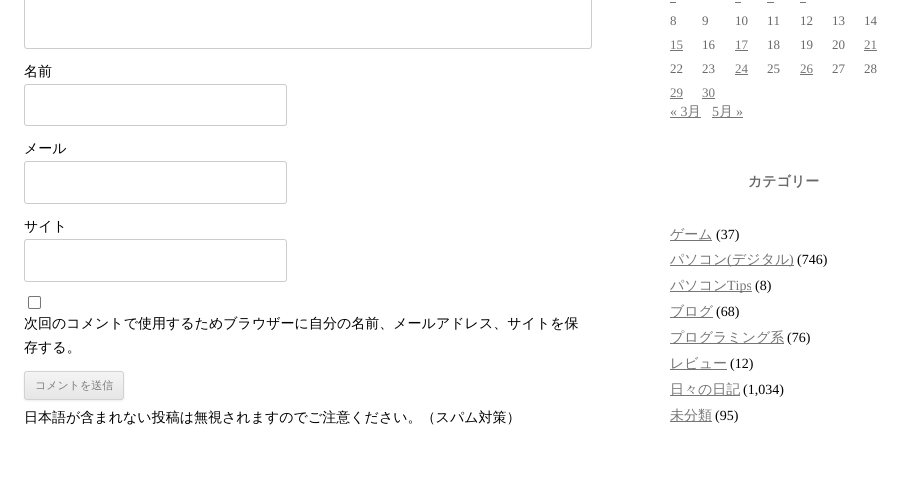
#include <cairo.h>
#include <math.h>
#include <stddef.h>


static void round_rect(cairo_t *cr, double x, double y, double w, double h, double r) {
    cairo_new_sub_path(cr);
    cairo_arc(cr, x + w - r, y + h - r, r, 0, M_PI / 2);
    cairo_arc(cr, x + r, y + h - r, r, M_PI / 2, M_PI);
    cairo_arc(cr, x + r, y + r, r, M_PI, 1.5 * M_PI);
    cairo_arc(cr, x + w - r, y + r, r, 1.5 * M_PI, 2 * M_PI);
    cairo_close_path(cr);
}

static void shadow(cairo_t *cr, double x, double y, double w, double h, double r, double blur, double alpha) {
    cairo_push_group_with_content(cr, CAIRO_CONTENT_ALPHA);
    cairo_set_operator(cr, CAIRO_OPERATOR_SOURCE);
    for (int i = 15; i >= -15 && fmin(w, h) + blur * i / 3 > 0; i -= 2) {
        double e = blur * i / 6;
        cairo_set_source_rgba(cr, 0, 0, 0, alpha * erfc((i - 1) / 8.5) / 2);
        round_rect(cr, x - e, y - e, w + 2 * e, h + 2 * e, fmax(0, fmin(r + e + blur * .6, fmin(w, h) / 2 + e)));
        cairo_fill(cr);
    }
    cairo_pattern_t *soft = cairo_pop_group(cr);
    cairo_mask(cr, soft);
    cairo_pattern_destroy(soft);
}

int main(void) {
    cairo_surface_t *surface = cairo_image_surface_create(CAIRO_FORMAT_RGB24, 921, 487);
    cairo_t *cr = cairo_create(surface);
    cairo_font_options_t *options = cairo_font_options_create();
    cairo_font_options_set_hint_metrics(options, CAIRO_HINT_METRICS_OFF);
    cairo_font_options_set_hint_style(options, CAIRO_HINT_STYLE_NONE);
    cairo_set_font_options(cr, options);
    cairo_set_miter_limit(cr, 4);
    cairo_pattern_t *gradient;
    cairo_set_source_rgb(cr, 1, 1, 1);
    cairo_paint(cr);
    round_rect(cr, 24.5, -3.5, 567, 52, 2.5);
    cairo_set_source_rgb(cr, 0.8, 0.8, 0.8);
    cairo_set_line_width(cr, 1);
    cairo_stroke(cr);
    cairo_select_font_face(cr, "WenQuanYi Zen Hei Medium", CAIRO_FONT_SLANT_NORMAL, CAIRO_FONT_WEIGHT_NORMAL);
    cairo_set_font_size(cr, 14);
    cairo_set_source_rgb(cr, 0, 0, 0);
    cairo_move_to(cr, 24, 76);
    cairo_show_text(cr, "名前");
    round_rect(cr, 24.5, 84.5, 262, 41, 2.5);
    cairo_set_source_rgb(cr, 0.8, 0.8, 0.8);
    cairo_stroke(cr);
    cairo_set_source_rgb(cr, 0, 0, 0);
    cairo_move_to(cr, 24, 153);
    cairo_show_text(cr, "メール");
    round_rect(cr, 24.5, 161.5, 262, 42, 2.5);
    cairo_set_source_rgb(cr, 0.8, 0.8, 0.8);
    cairo_stroke(cr);
    cairo_set_source_rgb(cr, 0, 0, 0);
    cairo_move_to(cr, 24, 231);
    cairo_show_text(cr, "サイト");
    round_rect(cr, 24.5, 239.5, 262, 42, 2.5);
    cairo_set_source_rgb(cr, 0.8, 0.8, 0.8);
    cairo_stroke(cr);
    round_rect(cr, 28.5, 296.5, 12, 12, 1.5);
    cairo_set_source_rgb(cr, 0.463, 0.463, 0.463);
    cairo_stroke(cr);
    cairo_set_source_rgb(cr, 0, 0, 0);
    cairo_move_to(cr, 24, 328);
    cairo_show_text(cr, "次回のコメントで使用するためブラウザーに自分の名前、メールアドレス、サイトを保");
    cairo_move_to(cr, 24, 352);
    cairo_show_text(cr, "存する。");
    cairo_set_source_rgb(cr, 0.251, 0.251, 0.251);
    shadow(cr, 24, 372, 100, 29, 3, 1, 0.1);
    cairo_save(cr);
    round_rect(cr, 24, 371, 100, 29, 3);
    cairo_clip(cr);
    gradient = cairo_pattern_create_linear(74, 372, 74, 399);
    cairo_pattern_add_color_stop_rgba(gradient, 0, 0.957, 0.957, 0.957, 1);
    cairo_pattern_add_color_stop_rgba(gradient, 1, 0.902, 0.902, 0.902, 1);
    cairo_set_source(cr, gradient);
    cairo_pattern_destroy(gradient);
    cairo_rectangle(cr, 24, 372, 100, 27);
    cairo_fill(cr);
    cairo_restore(cr);
    round_rect(cr, 24.5, 371.5, 99, 28, 2.5);
    cairo_set_source_rgb(cr, 0.824, 0.824, 0.824);
    cairo_stroke(cr);
    cairo_set_font_size(cr, 11);
    cairo_set_source_rgb(cr, 0.486, 0.486, 0.486);
    cairo_move_to(cr, 35, 389);
    cairo_show_text(cr, "コメントを送信");
    cairo_set_font_size(cr, 14);
    cairo_set_source_rgb(cr, 0, 0, 0);
    cairo_move_to(cr, 24, 422);
    cairo_show_text(cr, "日本語が含まれない投稿は無視されますのでご注意ください。（スパム対策）");
    cairo_set_source_rgb(cr, 0.459, 0.459, 0.459);
    cairo_rectangle(cr, 670, 2, 6, 1);
    cairo_fill(cr);
    cairo_rectangle(cr, 735, 2, 6, 1);
    cairo_fill(cr);
    cairo_rectangle(cr, 767, 2, 7, 1);
    cairo_fill(cr);
    cairo_rectangle(cr, 800, 2, 6, 1);
    cairo_fill(cr);
    cairo_select_font_face(cr, "Liberation Serif", CAIRO_FONT_SLANT_NORMAL, CAIRO_FONT_WEIGHT_NORMAL);
    cairo_set_font_size(cr, 13);
    cairo_set_source_rgb(cr, 0.408, 0.408, 0.408);
    cairo_move_to(cr, 670, 25);
    cairo_show_text(cr, "8");
    cairo_move_to(cr, 702, 25);
    cairo_show_text(cr, "9");
    cairo_move_to(cr, 735, 25);
    cairo_show_text(cr, "10");
    cairo_move_to(cr, 767, 25);
    cairo_show_text(cr, "11");
    cairo_move_to(cr, 800, 25);
    cairo_show_text(cr, "12");
    cairo_move_to(cr, 832, 25);
    cairo_show_text(cr, "13");
    cairo_move_to(cr, 864, 25);
    cairo_show_text(cr, "14");
    cairo_set_source_rgb(cr, 0.459, 0.459, 0.459);
    cairo_move_to(cr, 670, 49);
    cairo_show_text(cr, "15");
    cairo_rectangle(cr, 670, 50, 13, 1);
    cairo_fill(cr);
    cairo_set_source_rgb(cr, 0.408, 0.408, 0.408);
    cairo_move_to(cr, 702, 49);
    cairo_show_text(cr, "16");
    cairo_set_source_rgb(cr, 0.459, 0.459, 0.459);
    cairo_move_to(cr, 735, 49);
    cairo_show_text(cr, "17");
    cairo_rectangle(cr, 735, 50, 13, 1);
    cairo_fill(cr);
    cairo_set_source_rgb(cr, 0.408, 0.408, 0.408);
    cairo_move_to(cr, 767, 49);
    cairo_show_text(cr, "18");
    cairo_move_to(cr, 800, 49);
    cairo_show_text(cr, "19");
    cairo_move_to(cr, 832, 49);
    cairo_show_text(cr, "20");
    cairo_set_source_rgb(cr, 0.459, 0.459, 0.459);
    cairo_move_to(cr, 864, 49);
    cairo_show_text(cr, "21");
    cairo_rectangle(cr, 864, 50, 13, 1);
    cairo_fill(cr);
    cairo_set_source_rgb(cr, 0.408, 0.408, 0.408);
    cairo_move_to(cr, 670, 73);
    cairo_show_text(cr, "22");
    cairo_move_to(cr, 702, 73);
    cairo_show_text(cr, "23");
    cairo_set_source_rgb(cr, 0.459, 0.459, 0.459);
    cairo_move_to(cr, 735, 73);
    cairo_show_text(cr, "24");
    cairo_rectangle(cr, 735, 74, 13, 1);
    cairo_fill(cr);
    cairo_set_source_rgb(cr, 0.408, 0.408, 0.408);
    cairo_move_to(cr, 767, 73);
    cairo_show_text(cr, "25");
    cairo_set_source_rgb(cr, 0.459, 0.459, 0.459);
    cairo_move_to(cr, 800, 73);
    cairo_show_text(cr, "26");
    cairo_rectangle(cr, 800, 74, 13, 1);
    cairo_fill(cr);
    cairo_set_source_rgb(cr, 0.408, 0.408, 0.408);
    cairo_move_to(cr, 832, 73);
    cairo_show_text(cr, "27");
    cairo_move_to(cr, 864, 73);
    cairo_show_text(cr, "28");
    cairo_set_source_rgb(cr, 0.459, 0.459, 0.459);
    cairo_move_to(cr, 670, 97);
    cairo_show_text(cr, "29");
    cairo_rectangle(cr, 670, 98, 13, 1);
    cairo_fill(cr);
    cairo_move_to(cr, 702, 97);
    cairo_show_text(cr, "30");
    cairo_rectangle(cr, 702, 98, 13, 1);
    cairo_fill(cr);
    cairo_set_font_size(cr, 14);
    cairo_move_to(cr, 670, 116);
    cairo_show_text(cr, "« 3");
    cairo_rectangle(cr, 670, 117, 31, 1);
    cairo_fill(cr);
    cairo_select_font_face(cr, "WenQuanYi Zen Hei Medium", CAIRO_FONT_SLANT_NORMAL, CAIRO_FONT_WEIGHT_NORMAL);
    cairo_move_to(cr, 687, 116);
    cairo_show_text(cr, "月");
    cairo_select_font_face(cr, "Liberation Serif", CAIRO_FONT_SLANT_NORMAL, CAIRO_FONT_WEIGHT_NORMAL);
    cairo_move_to(cr, 712, 116);
    cairo_show_text(cr, "5");
    cairo_rectangle(cr, 712, 117, 31, 1);
    cairo_fill(cr);
    cairo_select_font_face(cr, "WenQuanYi Zen Hei Medium", CAIRO_FONT_SLANT_NORMAL, CAIRO_FONT_WEIGHT_NORMAL);
    cairo_move_to(cr, 719, 116);
    cairo_show_text(cr, "月");
    cairo_select_font_face(cr, "Liberation Serif", CAIRO_FONT_SLANT_NORMAL, CAIRO_FONT_WEIGHT_NORMAL);
    cairo_move_to(cr, 736, 116);
    cairo_show_text(cr, "»");
    cairo_select_font_face(cr, "WenQuanYi Zen Hei", CAIRO_FONT_SLANT_NORMAL, CAIRO_FONT_WEIGHT_BOLD);
    cairo_set_source_rgb(cr, 0.408, 0.408, 0.408);
    cairo_move_to(cr, 748, 186);
    cairo_show_text(cr, "カテゴリー");
    cairo_set_source_rgb(cr, 0.459, 0.459, 0.459);
    cairo_rectangle(cr, 670, 240, 42, 1);
    cairo_fill(cr);
    cairo_select_font_face(cr, "WenQuanYi Zen Hei Medium", CAIRO_FONT_SLANT_NORMAL, CAIRO_FONT_WEIGHT_NORMAL);
    cairo_move_to(cr, 670, 239);
    cairo_show_text(cr, "ゲーム");
    cairo_select_font_face(cr, "Liberation Serif", CAIRO_FONT_SLANT_NORMAL, CAIRO_FONT_WEIGHT_NORMAL);
    cairo_set_source_rgb(cr, 0, 0, 0);
    cairo_move_to(cr, 716, 239);
    cairo_show_text(cr, "(37)");
    cairo_set_source_rgb(cr, 0.459, 0.459, 0.459);
    cairo_rectangle(cr, 670, 265, 124, 1);
    cairo_fill(cr);
    cairo_select_font_face(cr, "WenQuanYi Zen Hei Medium", CAIRO_FONT_SLANT_NORMAL, CAIRO_FONT_WEIGHT_NORMAL);
    cairo_move_to(cr, 670, 264);
    cairo_show_text(cr, "パソコン");
    cairo_select_font_face(cr, "Liberation Serif", CAIRO_FONT_SLANT_NORMAL, CAIRO_FONT_WEIGHT_NORMAL);
    cairo_move_to(cr, 727, 264);
    cairo_show_text(cr, "(");
    cairo_select_font_face(cr, "WenQuanYi Zen Hei Medium", CAIRO_FONT_SLANT_NORMAL, CAIRO_FONT_WEIGHT_NORMAL);
    cairo_move_to(cr, 732, 264);
    cairo_show_text(cr, "デジタル");
    cairo_select_font_face(cr, "Liberation Serif", CAIRO_FONT_SLANT_NORMAL, CAIRO_FONT_WEIGHT_NORMAL);
    cairo_move_to(cr, 789, 264);
    cairo_show_text(cr, ")");
    cairo_set_source_rgb(cr, 0, 0, 0);
    cairo_move_to(cr, 797, 264);
    cairo_show_text(cr, "(746)");
    cairo_set_source_rgb(cr, 0.459, 0.459, 0.459);
    cairo_rectangle(cr, 670, 291, 82, 1);
    cairo_fill(cr);
    cairo_select_font_face(cr, "WenQuanYi Zen Hei Medium", CAIRO_FONT_SLANT_NORMAL, CAIRO_FONT_WEIGHT_NORMAL);
    cairo_move_to(cr, 670, 290);
    cairo_show_text(cr, "パソコン");
    cairo_select_font_face(cr, "Liberation Serif", CAIRO_FONT_SLANT_NORMAL, CAIRO_FONT_WEIGHT_NORMAL);
    cairo_move_to(cr, 727, 290);
    cairo_show_text(cr, "Tips");
    cairo_set_source_rgb(cr, 0, 0, 0);
    cairo_move_to(cr, 755, 290);
    cairo_show_text(cr, "(8)");
    cairo_set_source_rgb(cr, 0.459, 0.459, 0.459);
    cairo_rectangle(cr, 670, 317, 43, 1);
    cairo_fill(cr);
    cairo_select_font_face(cr, "WenQuanYi Zen Hei Medium", CAIRO_FONT_SLANT_NORMAL, CAIRO_FONT_WEIGHT_NORMAL);
    cairo_move_to(cr, 670, 316);
    cairo_show_text(cr, "ブログ");
    cairo_select_font_face(cr, "Liberation Serif", CAIRO_FONT_SLANT_NORMAL, CAIRO_FONT_WEIGHT_NORMAL);
    cairo_set_source_rgb(cr, 0, 0, 0);
    cairo_move_to(cr, 716, 316);
    cairo_show_text(cr, "(68)");
    cairo_set_source_rgb(cr, 0.459, 0.459, 0.459);
    cairo_rectangle(cr, 670, 343, 114, 1);
    cairo_fill(cr);
    cairo_select_font_face(cr, "WenQuanYi Zen Hei Medium", CAIRO_FONT_SLANT_NORMAL, CAIRO_FONT_WEIGHT_NORMAL);
    cairo_move_to(cr, 670, 342);
    cairo_show_text(cr, "プログラミング系");
    cairo_select_font_face(cr, "Liberation Serif", CAIRO_FONT_SLANT_NORMAL, CAIRO_FONT_WEIGHT_NORMAL);
    cairo_set_source_rgb(cr, 0, 0, 0);
    cairo_move_to(cr, 787, 342);
    cairo_show_text(cr, "(76)");
    cairo_set_source_rgb(cr, 0.459, 0.459, 0.459);
    cairo_rectangle(cr, 670, 369, 57, 1);
    cairo_fill(cr);
    cairo_select_font_face(cr, "WenQuanYi Zen Hei Medium", CAIRO_FONT_SLANT_NORMAL, CAIRO_FONT_WEIGHT_NORMAL);
    cairo_move_to(cr, 670, 368);
    cairo_show_text(cr, "レビュー");
    cairo_select_font_face(cr, "Liberation Serif", CAIRO_FONT_SLANT_NORMAL, CAIRO_FONT_WEIGHT_NORMAL);
    cairo_set_source_rgb(cr, 0, 0, 0);
    cairo_move_to(cr, 730, 368);
    cairo_show_text(cr, "(12)");
    cairo_set_source_rgb(cr, 0.459, 0.459, 0.459);
    cairo_rectangle(cr, 670, 395, 70, 1);
    cairo_fill(cr);
    cairo_select_font_face(cr, "WenQuanYi Zen Hei Medium", CAIRO_FONT_SLANT_NORMAL, CAIRO_FONT_WEIGHT_NORMAL);
    cairo_move_to(cr, 670, 394);
    cairo_show_text(cr, "日々の日記");
    cairo_select_font_face(cr, "Liberation Serif", CAIRO_FONT_SLANT_NORMAL, CAIRO_FONT_WEIGHT_NORMAL);
    cairo_set_source_rgb(cr, 0, 0, 0);
    cairo_move_to(cr, 743, 394);
    cairo_show_text(cr, "(1,034)");
    cairo_set_source_rgb(cr, 0.459, 0.459, 0.459);
    cairo_rectangle(cr, 670, 421, 42, 1);
    cairo_fill(cr);
    cairo_select_font_face(cr, "WenQuanYi Zen Hei Medium", CAIRO_FONT_SLANT_NORMAL, CAIRO_FONT_WEIGHT_NORMAL);
    cairo_move_to(cr, 670, 420);
    cairo_show_text(cr, "未分類");
    cairo_select_font_face(cr, "Liberation Serif", CAIRO_FONT_SLANT_NORMAL, CAIRO_FONT_WEIGHT_NORMAL);
    cairo_set_source_rgb(cr, 0, 0, 0);
    cairo_move_to(cr, 715, 420);
    cairo_show_text(cr, "(95)");
    cairo_surface_write_to_png(surface, "page.png");
    cairo_font_options_destroy(options);
    cairo_destroy(cr);
    cairo_surface_destroy(surface);
    return 0;
}
